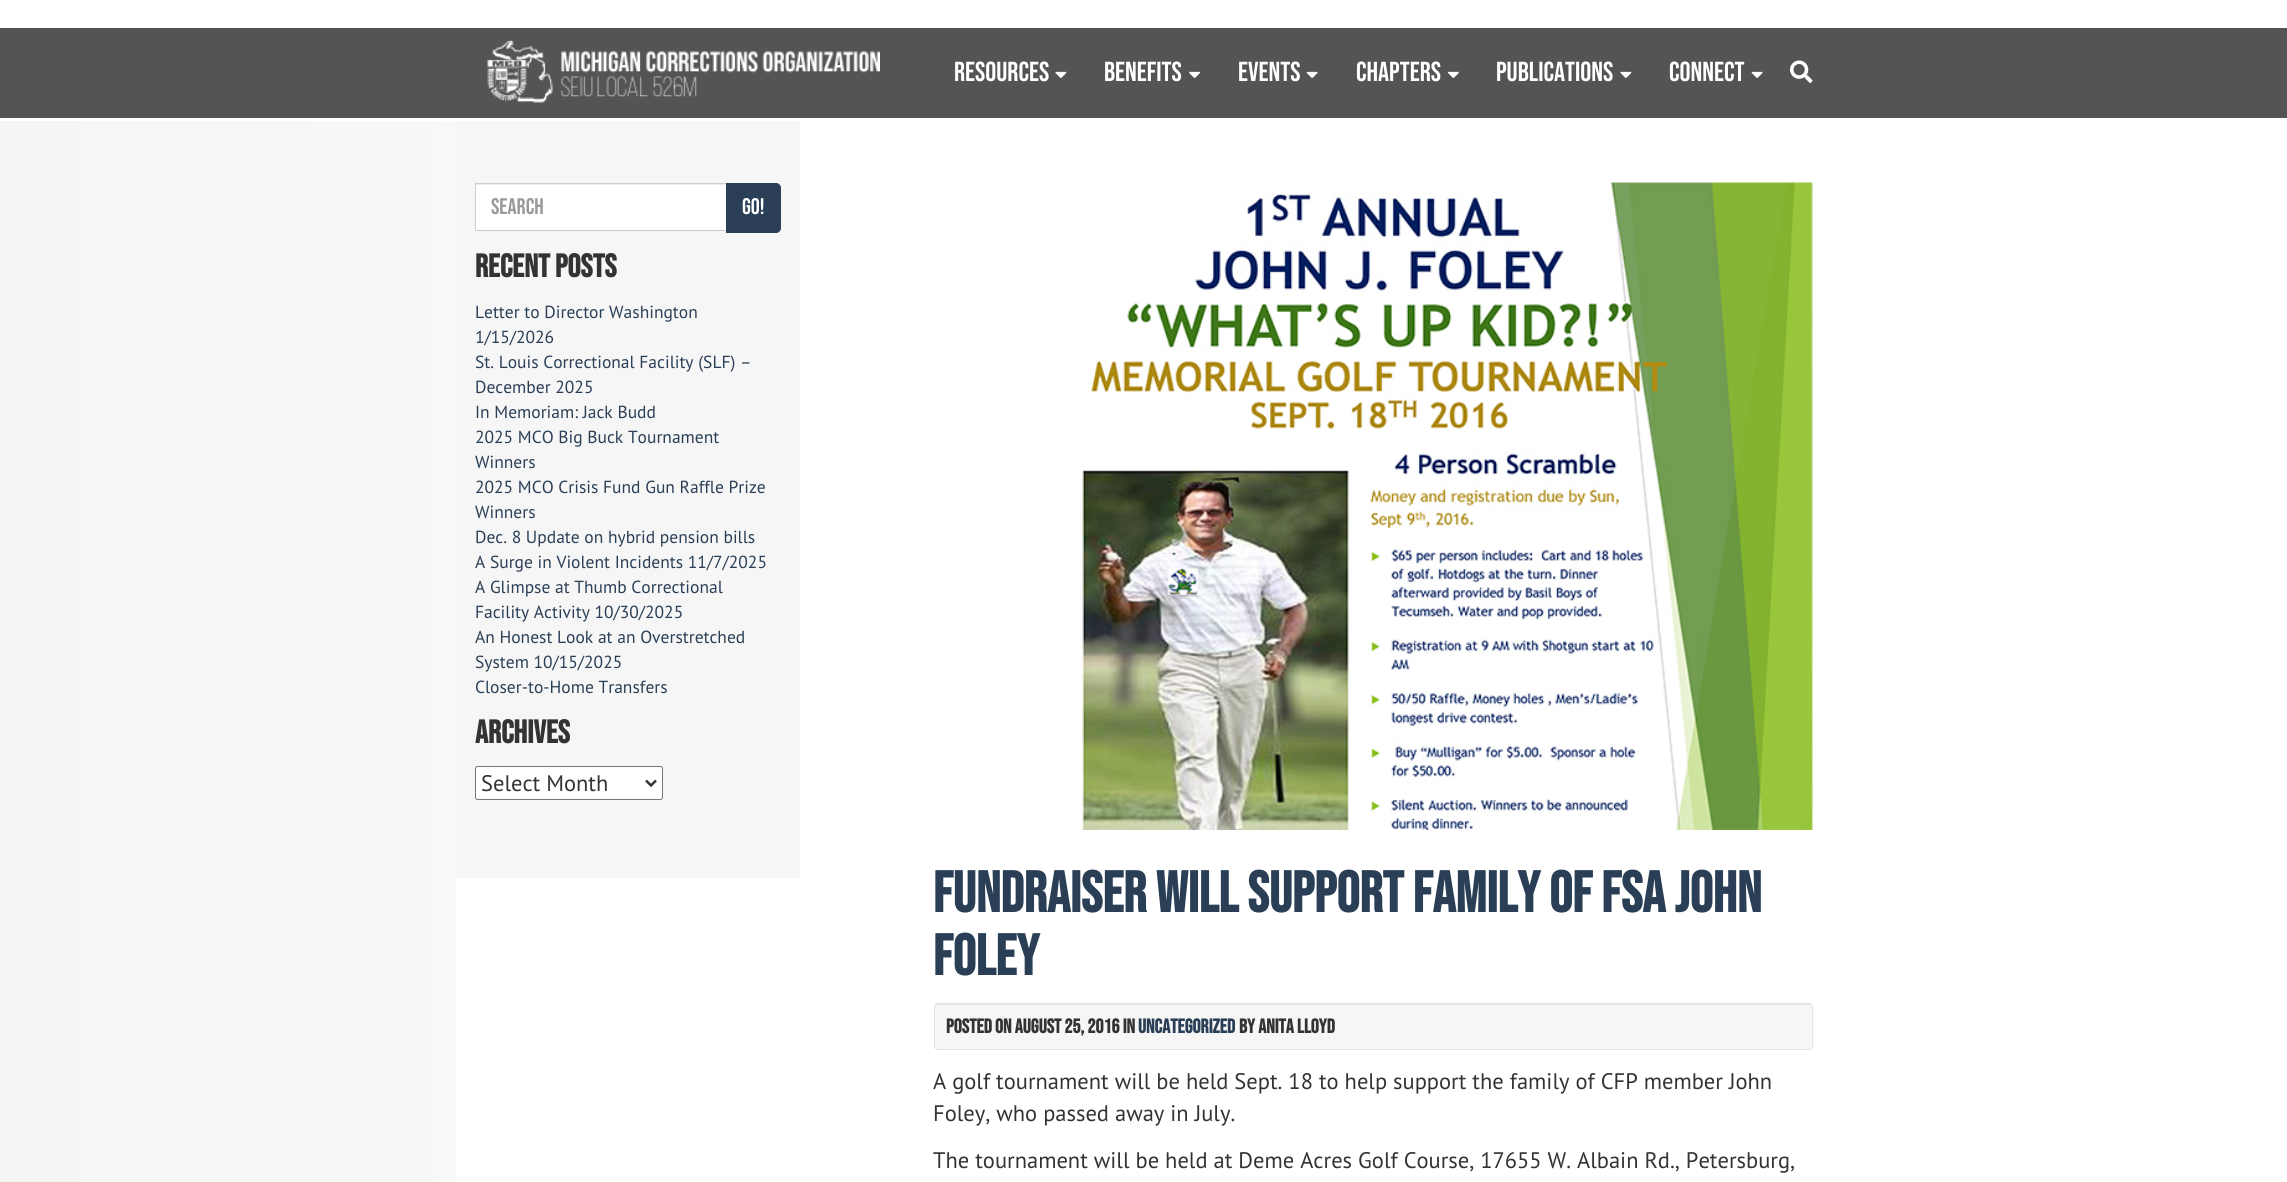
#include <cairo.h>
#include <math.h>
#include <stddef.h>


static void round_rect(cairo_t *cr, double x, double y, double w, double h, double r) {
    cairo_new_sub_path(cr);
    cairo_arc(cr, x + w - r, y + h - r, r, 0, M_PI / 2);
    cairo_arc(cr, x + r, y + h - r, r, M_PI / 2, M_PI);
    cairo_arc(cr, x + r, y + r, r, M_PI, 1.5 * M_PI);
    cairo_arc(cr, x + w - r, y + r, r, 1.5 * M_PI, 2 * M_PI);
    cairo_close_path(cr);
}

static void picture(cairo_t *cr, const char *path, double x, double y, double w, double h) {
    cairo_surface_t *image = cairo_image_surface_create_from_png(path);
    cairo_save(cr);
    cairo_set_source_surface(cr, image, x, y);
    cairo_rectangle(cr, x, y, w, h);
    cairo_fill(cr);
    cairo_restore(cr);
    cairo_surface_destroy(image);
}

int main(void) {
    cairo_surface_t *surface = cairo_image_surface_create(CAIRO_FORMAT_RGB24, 2287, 1182);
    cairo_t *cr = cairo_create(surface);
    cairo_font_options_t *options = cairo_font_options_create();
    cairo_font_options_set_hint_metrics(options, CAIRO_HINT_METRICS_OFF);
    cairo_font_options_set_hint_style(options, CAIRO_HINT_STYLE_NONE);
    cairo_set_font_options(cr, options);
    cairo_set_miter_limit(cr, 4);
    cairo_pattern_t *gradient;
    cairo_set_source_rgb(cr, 1, 1, 1);
    cairo_paint(cr);
    cairo_set_source_rgb(cr, 0.329, 0.329, 0.329);
    cairo_rectangle(cr, 0, 28, 2287, 90);
    cairo_fill(cr);
    picture(cr, "img1.png", 487, 40, 393, 63);
    picture(cr, "img2.png", 1790, 60, 23, 23);
    cairo_select_font_face(cr, "Bebas Neue", CAIRO_FONT_SLANT_NORMAL, CAIRO_FONT_WEIGHT_NORMAL);
    cairo_set_font_size(cr, 27.5);
    cairo_set_source_rgb(cr, 1, 1, 1);
    cairo_move_to(cr, 954, 81);
    cairo_show_text(cr, "Resources");
    picture(cr, "img3.png", 1055, 71, 12, 7);
    cairo_move_to(cr, 1104, 81);
    cairo_show_text(cr, "Benefits");
    picture(cr, "img4.png", 1189, 71, 11, 7);
    cairo_move_to(cr, 1238, 81);
    cairo_show_text(cr, "Events");
    picture(cr, "img5.png", 1306, 71, 12, 7);
    cairo_move_to(cr, 1356, 81);
    cairo_show_text(cr, "Chapters");
    picture(cr, "img6.png", 1447, 71, 12, 7);
    cairo_move_to(cr, 1496, 81);
    cairo_show_text(cr, "Publications");
    picture(cr, "img3.png", 1620, 71, 12, 7);
    cairo_move_to(cr, 1669, 81);
    cairo_show_text(cr, "Connect");
    picture(cr, "img5.png", 1751, 71, 12, 7);
    gradient = cairo_pattern_create_linear(0, 814, 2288, 814);
    cairo_pattern_add_color_stop_rgba(gradient, 0.01, 0.961, 0.961, 0.961, 1);
    cairo_pattern_add_color_stop_rgba(gradient, 0.53, 1, 1, 1, 1);
    cairo_pattern_add_color_stop_rgba(gradient, 1, 1, 1, 1, 1);
    cairo_set_source(cr, gradient);
    cairo_pattern_destroy(gradient);
    cairo_rectangle(cr, 0, 121, 915, 1061);
    cairo_fill(cr);
    cairo_set_source_rgb(cr, 1, 1, 1);
    cairo_rectangle(cr, 456, 121, 459, 1061);
    cairo_fill(cr);
    cairo_set_source_rgb(cr, 0.961, 0.961, 0.961);
    cairo_rectangle(cr, 456, 121, 344, 757);
    cairo_fill(cr);
    cairo_set_source_rgb(cr, 1, 1, 1);
    cairo_rectangle(cr, 476, 185, 250, 45);
    cairo_fill(cr);
    cairo_set_source_rgb(cr, 0.925, 0.925, 0.925);
    cairo_rectangle(cr, 476, 184, 250, 1);
    cairo_fill(cr);
    cairo_rectangle(cr, 475.5, 183.5, 252, 47);
    cairo_set_source_rgb(cr, 0.8, 0.8, 0.8);
    cairo_set_line_width(cr, 1);
    cairo_stroke(cr);
    cairo_set_font_size(cr, 22.5);
    cairo_set_source_rgb(cr, 0.6, 0.6, 0.6);
    cairo_move_to(cr, 491, 214);
    cairo_show_text(cr, "Search");
    cairo_set_source_rgb(cr, 0.165, 0.247, 0.337);
    cairo_new_path(cr);
    cairo_move_to(cr, 726.5, 183.5);
    cairo_line_to(cr, 776, 183.5);
    cairo_curve_to(cr, 778.5, 183.5, 780.5, 185.5, 780.5, 188);
    cairo_line_to(cr, 780.5, 228);
    cairo_curve_to(cr, 780.5, 230.5, 778.5, 232.5, 776, 232.5);
    cairo_line_to(cr, 726.5, 232.5);
    cairo_close_path(cr);
    cairo_fill_preserve(cr);
    cairo_stroke(cr);
    cairo_set_source_rgb(cr, 1, 1, 1);
    cairo_move_to(cr, 742, 214);
    cairo_show_text(cr, "Go!");
    cairo_select_font_face(cr, "Bebas Neue", CAIRO_FONT_SLANT_NORMAL, CAIRO_FONT_WEIGHT_BOLD);
    cairo_set_font_size(cr, 32.5);
    cairo_set_source_rgb(cr, 0.2, 0.2, 0.2);
    cairo_move_to(cr, 475, 277);
    cairo_show_text(cr, "Recent Posts");
    cairo_select_font_face(cr, "PT Sans", CAIRO_FONT_SLANT_NORMAL, CAIRO_FONT_WEIGHT_NORMAL);
    cairo_set_font_size(cr, 17.5);
    cairo_set_source_rgb(cr, 0.165, 0.247, 0.337);
    cairo_move_to(cr, 475, 318);
    cairo_show_text(cr, "Letter to Director Washington");
    cairo_move_to(cr, 475, 343);
    cairo_show_text(cr, "1/15/2026");
    cairo_move_to(cr, 475, 368);
    cairo_show_text(cr, "St. Louis Correctional Facility (SLF) –");
    cairo_move_to(cr, 475, 393);
    cairo_show_text(cr, "December 2025");
    cairo_move_to(cr, 475, 418);
    cairo_show_text(cr, "In Memoriam: Jack Budd");
    cairo_move_to(cr, 475, 443);
    cairo_show_text(cr, "2025 MCO Big Buck Tournament");
    cairo_move_to(cr, 475, 468);
    cairo_show_text(cr, "Winners");
    cairo_move_to(cr, 475, 493);
    cairo_show_text(cr, "2025 MCO Crisis Fund Gun Raffle Prize");
    cairo_move_to(cr, 475, 518);
    cairo_show_text(cr, "Winners");
    cairo_move_to(cr, 475, 543);
    cairo_show_text(cr, "Dec. 8 Update on hybrid pension bills");
    cairo_move_to(cr, 475, 568);
    cairo_show_text(cr, "A Surge in Violent Incidents 11/7/2025");
    cairo_move_to(cr, 475, 593);
    cairo_show_text(cr, "A Glimpse at Thumb Correctional");
    cairo_move_to(cr, 475, 618);
    cairo_show_text(cr, "Facility Activity 10/30/2025");
    cairo_move_to(cr, 475, 643);
    cairo_show_text(cr, "An Honest Look at an Overstretched");
    cairo_move_to(cr, 475, 668);
    cairo_show_text(cr, "System 10/15/2025");
    cairo_move_to(cr, 475, 693);
    cairo_show_text(cr, "Closer-to-Home Transfers");
    cairo_select_font_face(cr, "Bebas Neue", CAIRO_FONT_SLANT_NORMAL, CAIRO_FONT_WEIGHT_BOLD);
    cairo_set_font_size(cr, 32.5);
    cairo_set_source_rgb(cr, 0.2, 0.2, 0.2);
    cairo_move_to(cr, 475, 743);
    cairo_show_text(cr, "Archives");
    cairo_set_source_rgb(cr, 1, 1, 1);
    round_rect(cr, 475.5, 766.5, 187, 33, 2);
    cairo_fill_preserve(cr);
    cairo_set_source_rgb(cr, 0.463, 0.463, 0.463);
    cairo_stroke(cr);
    cairo_new_path(cr);
    cairo_move_to(cr, 646, 780.5);
    cairo_line_to(cr, 651, 785.5);
    cairo_line_to(cr, 656, 780.5);
    cairo_set_source_rgb(cr, 0.2, 0.2, 0.2);
    cairo_set_line_width(cr, 2.5);
    cairo_stroke(cr);
    cairo_select_font_face(cr, "PT Sans", CAIRO_FONT_SLANT_NORMAL, CAIRO_FONT_WEIGHT_NORMAL);
    cairo_set_font_size(cr, 22.5);
    cairo_move_to(cr, 481, 791);
    cairo_show_text(cr, "Select Month");
    picture(cr, "img7.png", 1082, 182, 731, 648);
    cairo_select_font_face(cr, "Bebas Neue", CAIRO_FONT_SLANT_NORMAL, CAIRO_FONT_WEIGHT_BOLD);
    cairo_set_font_size(cr, 57.5);
    cairo_set_source_rgb(cr, 0.165, 0.247, 0.337);
    cairo_move_to(cr, 933, 912);
    cairo_show_text(cr, "Fundraiser will support family of FSA John");
    cairo_move_to(cr, 933, 975);
    cairo_show_text(cr, "Foley");
    cairo_set_source_rgb(cr, 0.961, 0.961, 0.961);
    round_rect(cr, 934, 1003, 879, 47, 4);
    cairo_fill(cr);
    cairo_set_source_rgb(cr, 0.914, 0.914, 0.914);
    cairo_new_path(cr);
    cairo_move_to(cr, 938, 1005);
    cairo_line_to(cr, 1809, 1005);
    cairo_curve_to(cr, 1810, 1005, 1811, 1006, 1811, 1008);
    cairo_line_to(cr, 1811, 1006);
    cairo_curve_to(cr, 1811, 1005, 1810, 1004, 1808, 1004);
    cairo_line_to(cr, 938, 1004);
    cairo_curve_to(cr, 936, 1004, 935, 1005, 935, 1006);
    cairo_line_to(cr, 935, 1008);
    cairo_curve_to(cr, 935, 1006, 936, 1005, 938, 1005);
    cairo_close_path(cr);
    cairo_fill(cr);
    round_rect(cr, 934.5, 1003.5, 878, 46, 3.5);
    cairo_set_source_rgb(cr, 0.89, 0.89, 0.89);
    cairo_set_line_width(cr, 1);
    cairo_stroke(cr);
    cairo_set_font_size(cr, 20);
    cairo_set_source_rgb(cr, 0.2, 0.2, 0.2);
    cairo_move_to(cr, 946, 1033);
    cairo_show_text(cr, "Posted on August 25, 2016 in");
    cairo_set_source_rgb(cr, 0.165, 0.247, 0.337);
    cairo_move_to(cr, 1138, 1033);
    cairo_show_text(cr, "Uncategorized");
    cairo_set_source_rgb(cr, 0.2, 0.2, 0.2);
    cairo_move_to(cr, 1239, 1033);
    cairo_show_text(cr, "by Anita Lloyd");
    cairo_select_font_face(cr, "PT Sans", CAIRO_FONT_SLANT_NORMAL, CAIRO_FONT_WEIGHT_NORMAL);
    cairo_set_font_size(cr, 22.5);
    cairo_move_to(cr, 933, 1089);
    cairo_show_text(cr, "A golf tournament will be held Sept. 18 to help support the family of CFP member John");
    cairo_move_to(cr, 933, 1121);
    cairo_show_text(cr, "Foley, who passed away in July.");
    cairo_move_to(cr, 933, 1168);
    cairo_show_text(cr, "The tournament will be held at Deme Acres Golf Course, 17655 W. Albain Rd., Petersburg,");
    cairo_surface_write_to_png(surface, "page.png");
    cairo_font_options_destroy(options);
    cairo_destroy(cr);
    cairo_surface_destroy(surface);
    return 0;
}
